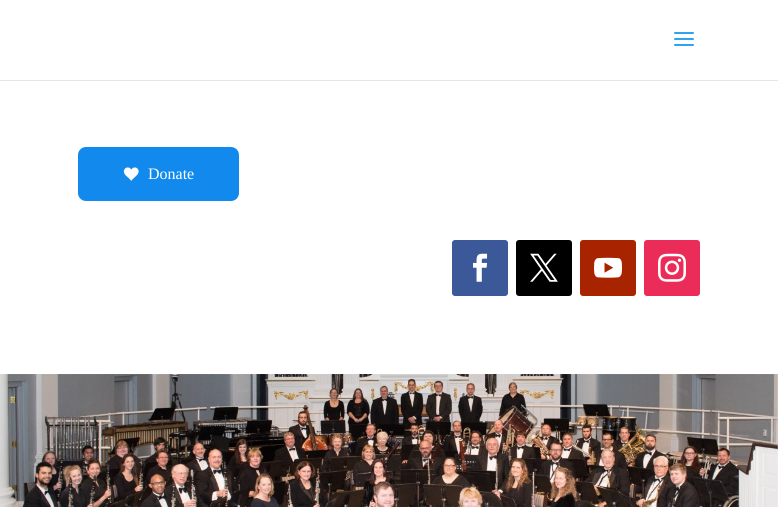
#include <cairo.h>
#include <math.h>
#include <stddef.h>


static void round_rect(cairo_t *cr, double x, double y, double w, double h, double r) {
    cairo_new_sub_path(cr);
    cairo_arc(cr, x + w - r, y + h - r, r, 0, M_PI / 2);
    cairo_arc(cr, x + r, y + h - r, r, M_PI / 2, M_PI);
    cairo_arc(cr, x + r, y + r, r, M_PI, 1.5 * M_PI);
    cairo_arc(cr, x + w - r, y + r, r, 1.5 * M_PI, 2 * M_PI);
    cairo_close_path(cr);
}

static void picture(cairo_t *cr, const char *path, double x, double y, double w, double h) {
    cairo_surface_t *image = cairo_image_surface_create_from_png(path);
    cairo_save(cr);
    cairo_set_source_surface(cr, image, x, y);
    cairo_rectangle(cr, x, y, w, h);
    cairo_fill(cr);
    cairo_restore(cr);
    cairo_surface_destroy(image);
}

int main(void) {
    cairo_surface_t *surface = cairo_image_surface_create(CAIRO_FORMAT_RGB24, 778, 507);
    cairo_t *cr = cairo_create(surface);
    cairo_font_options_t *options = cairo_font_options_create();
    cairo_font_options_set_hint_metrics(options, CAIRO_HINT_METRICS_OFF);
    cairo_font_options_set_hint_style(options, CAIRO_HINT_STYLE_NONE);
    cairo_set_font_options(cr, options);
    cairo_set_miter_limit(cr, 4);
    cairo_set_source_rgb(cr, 1, 1, 1);
    cairo_paint(cr);
    cairo_set_source_rgb(cr, 0.902, 0.902, 0.902);
    cairo_rectangle(cr, 0, 80, 778, 1);
    cairo_fill(cr);
    picture(cr, "img1.png", 674, 32, 20, 14);
    cairo_set_source_rgb(cr, 0.071, 0.541, 0.929);
    round_rect(cr, 78, 147, 161, 54, 8);
    cairo_fill(cr);
    picture(cr, "img2.png", 123, 167, 16, 14);
    cairo_select_font_face(cr, "Liberation Serif", CAIRO_FONT_SLANT_NORMAL, CAIRO_FONT_WEIGHT_NORMAL);
    cairo_set_font_size(cr, 16);
    cairo_set_source_rgb(cr, 1, 1, 1);
    cairo_move_to(cr, 148, 179);
    cairo_show_text(cr, "Donate");
    cairo_set_source_rgb(cr, 0.231, 0.349, 0.596);
    round_rect(cr, 452, 240, 56, 56, 3);
    cairo_fill(cr);
    picture(cr, "img3.png", 473, 253, 15, 29);
    cairo_set_source_rgb(cr, 0, 0, 0);
    round_rect(cr, 516, 240, 56, 56, 3);
    cairo_fill(cr);
    picture(cr, "img4.png", 530, 253, 28, 29);
    cairo_set_source_rgb(cr, 0.659, 0.141, 0);
    round_rect(cr, 580, 240, 56, 56, 3);
    cairo_fill(cr);
    picture(cr, "img5.png", 594, 257, 28, 21);
    cairo_set_source_rgb(cr, 0.918, 0.173, 0.349);
    round_rect(cr, 644, 240, 56, 56, 3);
    cairo_fill(cr);
    picture(cr, "img6.png", 658, 253, 28, 29);
    picture(cr, "img7.png", 0, 374, 778, 133);
    cairo_surface_write_to_png(surface, "page.png");
    cairo_font_options_destroy(options);
    cairo_destroy(cr);
    cairo_surface_destroy(surface);
    return 0;
}
